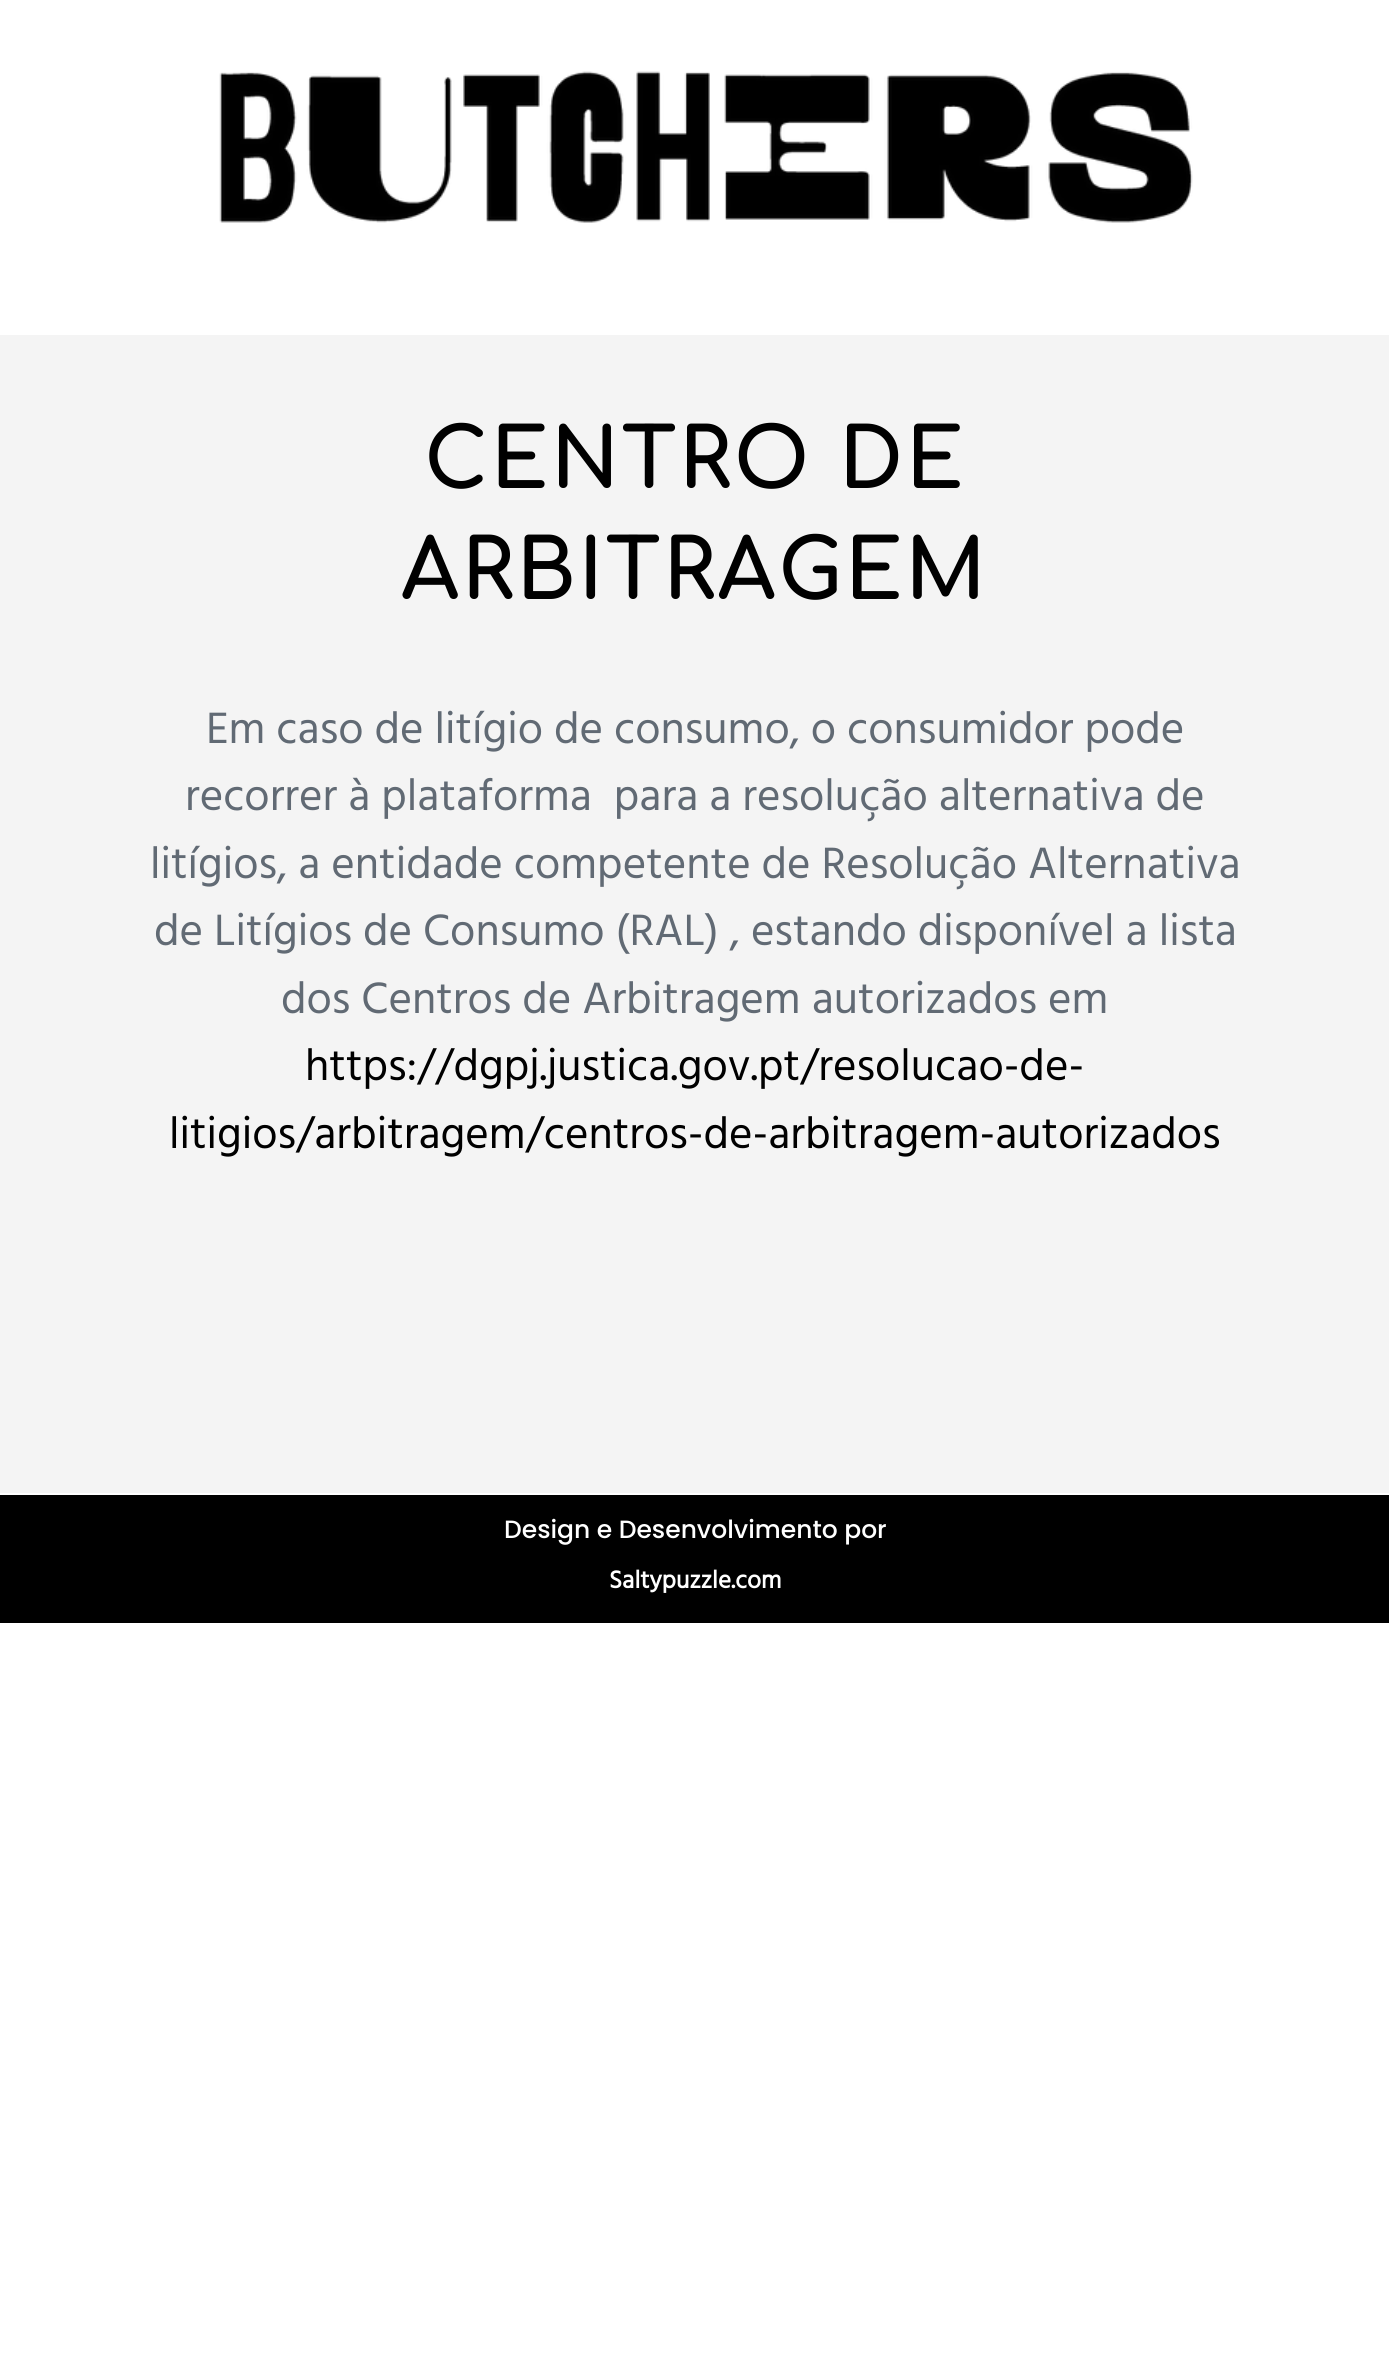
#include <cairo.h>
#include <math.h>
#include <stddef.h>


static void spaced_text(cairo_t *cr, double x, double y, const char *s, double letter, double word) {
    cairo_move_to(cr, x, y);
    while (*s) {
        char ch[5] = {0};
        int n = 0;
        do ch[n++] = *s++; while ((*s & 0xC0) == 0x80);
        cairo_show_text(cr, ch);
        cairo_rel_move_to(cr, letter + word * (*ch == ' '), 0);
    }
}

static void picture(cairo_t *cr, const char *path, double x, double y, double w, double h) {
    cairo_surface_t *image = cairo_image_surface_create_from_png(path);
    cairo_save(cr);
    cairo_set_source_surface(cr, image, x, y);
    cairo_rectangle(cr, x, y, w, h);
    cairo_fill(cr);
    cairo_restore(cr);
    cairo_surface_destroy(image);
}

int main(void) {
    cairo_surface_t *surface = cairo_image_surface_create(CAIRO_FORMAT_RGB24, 1389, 2372);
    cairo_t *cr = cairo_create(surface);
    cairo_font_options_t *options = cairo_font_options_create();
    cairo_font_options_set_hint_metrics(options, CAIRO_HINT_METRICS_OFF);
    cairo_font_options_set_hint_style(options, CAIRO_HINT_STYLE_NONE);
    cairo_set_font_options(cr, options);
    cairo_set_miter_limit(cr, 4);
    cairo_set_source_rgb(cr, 1, 1, 1);
    cairo_paint(cr);
    picture(cr, "img1.png", 219, 71, 974, 152);
    cairo_set_source_rgb(cr, 0.957, 0.957, 0.957);
    cairo_rectangle(cr, 0, 335, 1389, 1158);
    cairo_fill(cr);
    cairo_select_font_face(cr, "Comfortaa", CAIRO_FONT_SLANT_NORMAL, CAIRO_FONT_WEIGHT_BOLD);
    cairo_set_font_size(cr, 82.5);
    cairo_set_source_rgb(cr, 0, 0, 0);
    spaced_text(cr, 424, 488, "CENTRO DE", 2.5, 0);
    spaced_text(cr, 401, 599, "ARBITRAGEM", 2.5, 0);
    cairo_select_font_face(cr, "Hind Madurai", CAIRO_FONT_SLANT_NORMAL, CAIRO_FONT_WEIGHT_NORMAL);
    cairo_set_font_size(cr, 45);
    cairo_set_source_rgb(cr, 0.38, 0.416, 0.455);
    cairo_move_to(cr, 206, 743);
    cairo_show_text(cr, "Em caso de litígio de consumo, o consumidor pode");
    cairo_move_to(cr, 185, 810);
    cairo_show_text(cr, "recorrer à plataforma  para a resolução alternativa de");
    cairo_move_to(cr, 150, 878);
    cairo_show_text(cr, "litígios, a entidade competente de Resolução Alternativa");
    cairo_move_to(cr, 154, 945);
    cairo_show_text(cr, "de Litígios de Consumo (RAL) , estando disponível a lista");
    cairo_move_to(cr, 281, 1013);
    cairo_show_text(cr, "dos Centros de Arbitragem autorizados em");
    cairo_set_source_rgb(cr, 0, 0, 0);
    cairo_move_to(cr, 305, 1080);
    cairo_show_text(cr, "https://dgpj.justica.gov.pt/resolucao-de-");
    cairo_move_to(cr, 169, 1148);
    cairo_show_text(cr, "litigios/arbitragem/centros-de-arbitragem-autorizados");
    cairo_rectangle(cr, 0, 1495, 1389, 128);
    cairo_fill(cr);
    cairo_select_font_face(cr, "Poppins Medium", CAIRO_FONT_SLANT_NORMAL, CAIRO_FONT_WEIGHT_NORMAL);
    cairo_set_font_size(cr, 25);
    cairo_set_source_rgb(cr, 1, 1, 1);
    cairo_move_to(cr, 504, 1538);
    cairo_show_text(cr, "Design e Desenvolvimento por");
    cairo_select_font_face(cr, "Hind Madurai", CAIRO_FONT_SLANT_NORMAL, CAIRO_FONT_WEIGHT_BOLD);
    cairo_move_to(cr, 609, 1588);
    cairo_show_text(cr, "Saltypuzzle.com");
    cairo_surface_write_to_png(surface, "page.png");
    cairo_font_options_destroy(options);
    cairo_destroy(cr);
    cairo_surface_destroy(surface);
    return 0;
}
